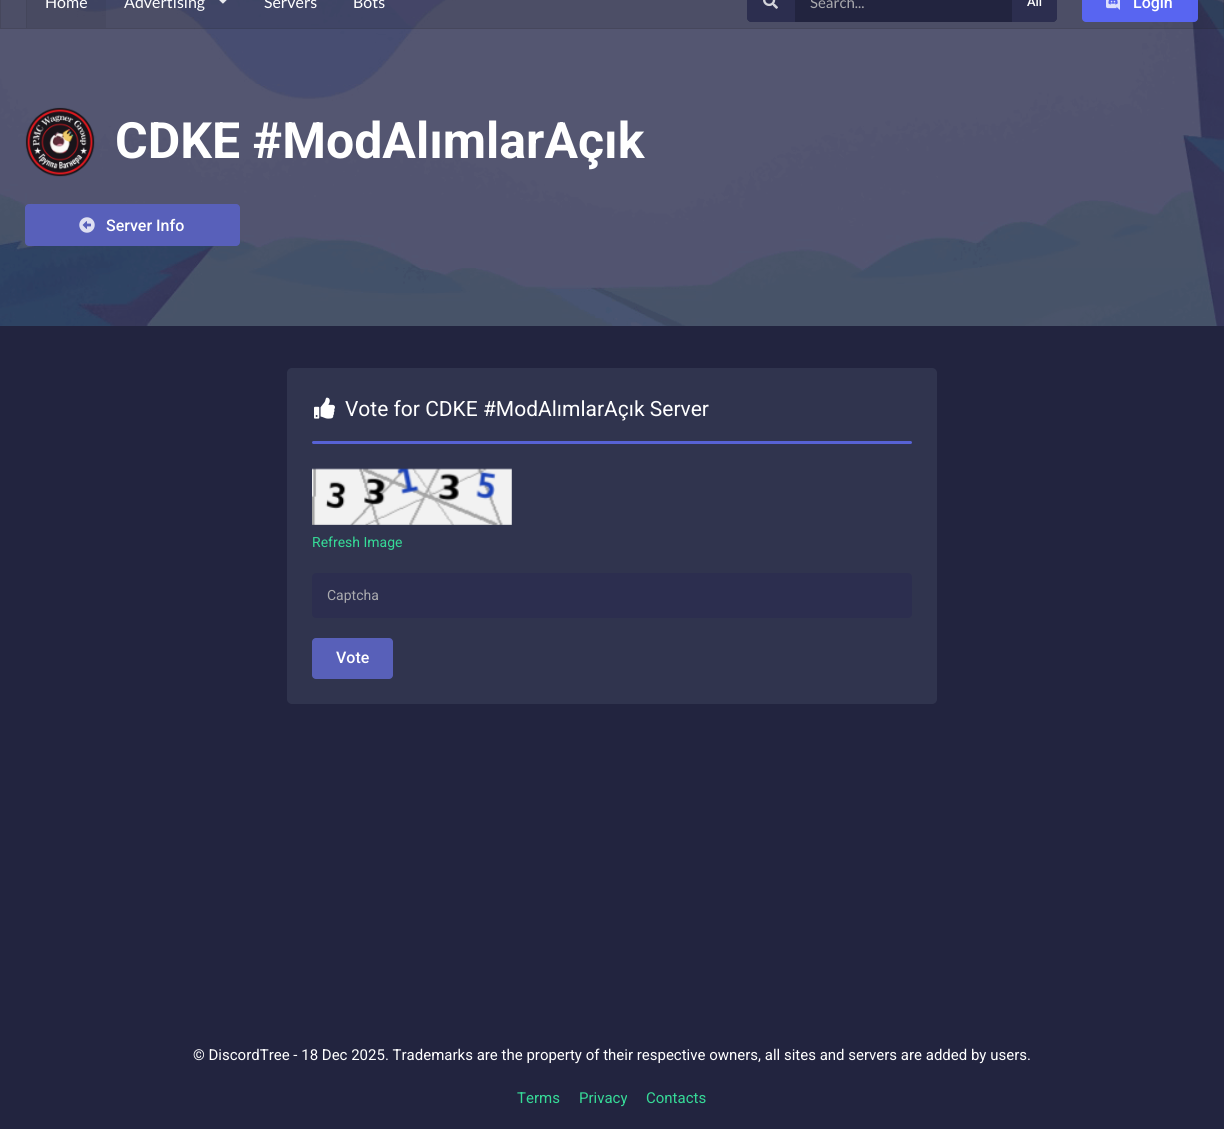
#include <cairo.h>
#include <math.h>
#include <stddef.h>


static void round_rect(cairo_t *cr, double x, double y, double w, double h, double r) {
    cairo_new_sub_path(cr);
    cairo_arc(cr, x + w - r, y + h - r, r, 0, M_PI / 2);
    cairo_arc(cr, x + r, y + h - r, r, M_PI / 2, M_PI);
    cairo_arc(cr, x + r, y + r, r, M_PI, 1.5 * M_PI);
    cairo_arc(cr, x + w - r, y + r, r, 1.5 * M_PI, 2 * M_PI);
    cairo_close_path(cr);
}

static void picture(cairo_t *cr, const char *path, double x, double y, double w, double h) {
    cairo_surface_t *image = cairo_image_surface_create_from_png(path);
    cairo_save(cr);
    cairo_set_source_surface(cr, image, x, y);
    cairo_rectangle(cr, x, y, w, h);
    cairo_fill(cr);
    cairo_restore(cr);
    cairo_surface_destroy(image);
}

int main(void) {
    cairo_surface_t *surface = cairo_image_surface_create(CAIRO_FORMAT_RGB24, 1224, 1129);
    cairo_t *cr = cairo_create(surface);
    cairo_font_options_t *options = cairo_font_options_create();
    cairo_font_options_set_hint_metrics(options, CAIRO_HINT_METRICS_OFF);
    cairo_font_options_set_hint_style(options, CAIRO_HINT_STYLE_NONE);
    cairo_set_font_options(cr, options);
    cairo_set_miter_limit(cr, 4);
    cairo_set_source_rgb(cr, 0.133, 0.141, 0.247);
    cairo_paint(cr);
    cairo_set_source_rgb(cr, 0.173, 0.18, 0.31);
    cairo_rectangle(cr, 0, 0, 1224, 326);
    cairo_fill(cr);
    picture(cr, "img4.png", 0, 0, 1224, 326);
    cairo_set_source_rgba(cr, 0, 0, 0, 0.1);
    cairo_rectangle(cr, 0, 0, 1224, 29);
    cairo_fill(cr);
    cairo_rectangle(cr, 0.5, -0.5, 1223, 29);
    cairo_set_source_rgba(cr, 0.133, 0.141, 0.149, 0.15);
    cairo_set_line_width(cr, 1);
    cairo_stroke(cr);
    cairo_set_source_rgba(cr, 0, 0, 0, 0.05);
    cairo_rectangle(cr, 27, 0, 79, 28);
    cairo_fill(cr);
    cairo_set_source_rgb(cr, 0.267, 0.275, 0.357);
    cairo_rectangle(cr, 26, 0, 1, 28);
    cairo_fill(cr);
    cairo_select_font_face(cr, "Lato", CAIRO_FONT_SLANT_NORMAL, CAIRO_FONT_WEIGHT_NORMAL);
    cairo_set_font_size(cr, 16);
    cairo_set_source_rgb(cr, 1, 1, 1);
    cairo_move_to(cr, 45, 8);
    cairo_show_text(cr, "Home");
    cairo_move_to(cr, 124, 8);
    cairo_show_text(cr, "Advertising");
    picture(cr, "img1.png", 219, 0, 8, 4);
    cairo_move_to(cr, 264, 8);
    cairo_show_text(cr, "Servers");
    cairo_move_to(cr, 353, 8);
    cairo_show_text(cr, "Bots");
    cairo_set_source_rgba(cr, 0.133, 0.141, 0.247, 0.99);
    round_rect(cr, 747, -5, 310, 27, 5);
    cairo_fill(cr);
    cairo_set_source_rgb(cr, 0.173, 0.18, 0.31);
    cairo_new_path(cr);
    cairo_move_to(cr, 751, -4);
    cairo_line_to(cr, 795, -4);
    cairo_line_to(cr, 795, 22);
    cairo_line_to(cr, 751, 22);
    cairo_curve_to(cr, 749, 22, 747, 20, 747, 18);
    cairo_line_to(cr, 747, 0);
    cairo_curve_to(cr, 747, -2, 749, -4, 751, -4);
    cairo_close_path(cr);
    cairo_fill(cr);
    picture(cr, "img2.png", 763, 0, 15, 9);
    cairo_set_font_size(cr, 15);
    cairo_set_source_rgb(cr, 0.667, 0.667, 0.682);
    cairo_move_to(cr, 810, 8);
    cairo_show_text(cr, "Search...");
    cairo_set_source_rgb(cr, 0.173, 0.18, 0.31);
    cairo_new_path(cr);
    cairo_move_to(cr, 1012, -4);
    cairo_line_to(cr, 1053, -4);
    cairo_curve_to(cr, 1055, -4, 1057, -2, 1057, 0);
    cairo_line_to(cr, 1057, 18);
    cairo_curve_to(cr, 1057, 20, 1055, 22, 1053, 22);
    cairo_line_to(cr, 1012, 22);
    cairo_close_path(cr);
    cairo_fill(cr);
    cairo_select_font_face(cr, "Lato", CAIRO_FONT_SLANT_NORMAL, CAIRO_FONT_WEIGHT_BOLD);
    cairo_set_font_size(cr, 12);
    cairo_set_source_rgb(cr, 1, 1, 1);
    cairo_move_to(cr, 1027, 6);
    cairo_show_text(cr, "All");
    cairo_set_source_rgba(cr, 0.345, 0.396, 0.949, 0.99);
    round_rect(cr, 1082, -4, 116, 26, 4);
    cairo_fill(cr);
    picture(cr, "img3.png", 1106, 0, 14, 10);
    cairo_select_font_face(cr, "Roboto Medium", CAIRO_FONT_SLANT_NORMAL, CAIRO_FONT_WEIGHT_NORMAL);
    cairo_set_font_size(cr, 16);
    cairo_set_source_rgb(cr, 1, 1, 1);
    cairo_move_to(cr, 1133, 8);
    cairo_show_text(cr, "Login");
    picture(cr, "img5.png", 25, 107, 70, 70);
    cairo_select_font_face(cr, "Roboto", CAIRO_FONT_SLANT_NORMAL, CAIRO_FONT_WEIGHT_BOLD);
    cairo_set_font_size(cr, 50);
    cairo_move_to(cr, 115, 158);
    cairo_show_text(cr, "CDKE #ModAlımlarAçık");
    cairo_set_source_rgb(cr, 0.345, 0.376, 0.729);
    round_rect(cr, 25, 204, 215, 42, 4);
    cairo_fill(cr);
    picture(cr, "img6.png", 79, 217, 16, 16);
    cairo_select_font_face(cr, "Roboto Medium", CAIRO_FONT_SLANT_NORMAL, CAIRO_FONT_WEIGHT_NORMAL);
    cairo_set_font_size(cr, 16);
    cairo_set_source_rgb(cr, 1, 1, 1);
    cairo_move_to(cr, 106, 231);
    cairo_show_text(cr, "Server Info");
    cairo_set_source_rgb(cr, 0.188, 0.204, 0.306);
    round_rect(cr, 287, 368, 650, 336, 5);
    cairo_fill(cr);
    picture(cr, "img7.png", 314, 397, 21, 22);
    cairo_select_font_face(cr, "Roboto", CAIRO_FONT_SLANT_NORMAL, CAIRO_FONT_WEIGHT_NORMAL);
    cairo_set_font_size(cr, 21);
    cairo_set_source_rgb(cr, 1, 1, 1);
    cairo_move_to(cr, 345, 416);
    cairo_show_text(cr, "Vote for CDKE #ModAlımlarAçık Server");
    cairo_set_source_rgb(cr, 0.341, 0.384, 0.835);
    round_rect(cr, 312, 441, 600, 3, 1.5);
    cairo_fill(cr);
    picture(cr, "img8.png", 312, 468, 200, 57);
    cairo_set_font_size(cr, 14);
    cairo_set_source_rgb(cr, 0.212, 0.855, 0.592);
    cairo_move_to(cr, 312, 547);
    cairo_show_text(cr, "Refresh Image");
    cairo_set_source_rgb(cr, 0.173, 0.18, 0.31);
    round_rect(cr, 312, 573, 600, 45, 4);
    cairo_fill(cr);
    cairo_set_source_rgb(cr, 0.667, 0.667, 0.682);
    cairo_move_to(cr, 327, 600);
    cairo_show_text(cr, "Captcha");
    cairo_set_source_rgb(cr, 0.345, 0.376, 0.725);
    round_rect(cr, 312, 638, 81, 41, 4);
    cairo_fill(cr);
    cairo_select_font_face(cr, "Roboto Medium", CAIRO_FONT_SLANT_NORMAL, CAIRO_FONT_WEIGHT_NORMAL);
    cairo_set_font_size(cr, 16);
    cairo_set_source_rgb(cr, 1, 1, 1);
    cairo_move_to(cr, 336, 663);
    cairo_show_text(cr, "Vote");
    cairo_select_font_face(cr, "Roboto", CAIRO_FONT_SLANT_NORMAL, CAIRO_FONT_WEIGHT_NORMAL);
    cairo_set_font_size(cr, 15);
    cairo_move_to(cr, 193, 1060);
    cairo_show_text(cr, "© DiscordTree - 18 Dec 2025. Trademarks are the property of their respective owners, all sites and servers are added by users.");
    cairo_set_source_rgb(cr, 0.212, 0.855, 0.592);
    cairo_move_to(cr, 517, 1103);
    cairo_show_text(cr, "Terms");
    cairo_move_to(cr, 579, 1103);
    cairo_show_text(cr, "Privacy");
    cairo_move_to(cr, 646, 1103);
    cairo_show_text(cr, "Contacts");
    cairo_surface_write_to_png(surface, "page.png");
    cairo_font_options_destroy(options);
    cairo_destroy(cr);
    cairo_surface_destroy(surface);
    return 0;
}
